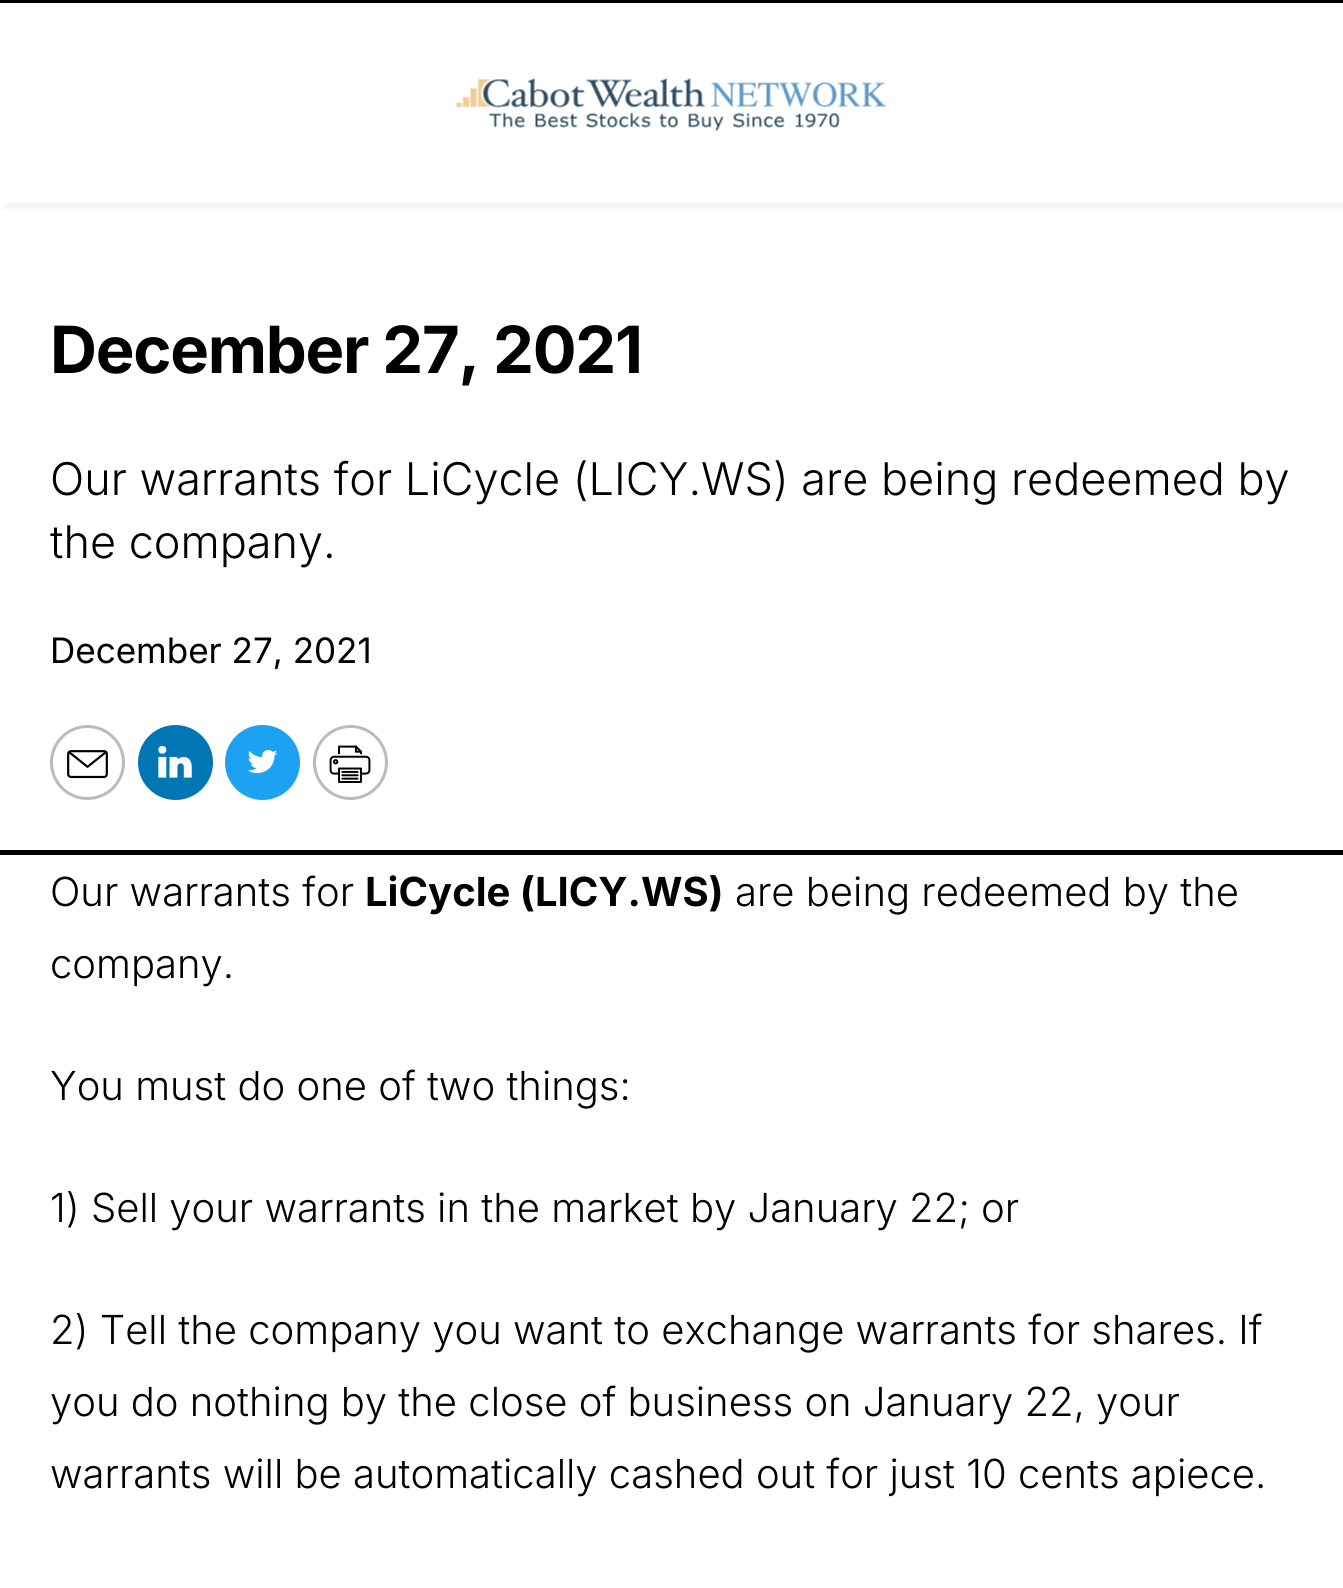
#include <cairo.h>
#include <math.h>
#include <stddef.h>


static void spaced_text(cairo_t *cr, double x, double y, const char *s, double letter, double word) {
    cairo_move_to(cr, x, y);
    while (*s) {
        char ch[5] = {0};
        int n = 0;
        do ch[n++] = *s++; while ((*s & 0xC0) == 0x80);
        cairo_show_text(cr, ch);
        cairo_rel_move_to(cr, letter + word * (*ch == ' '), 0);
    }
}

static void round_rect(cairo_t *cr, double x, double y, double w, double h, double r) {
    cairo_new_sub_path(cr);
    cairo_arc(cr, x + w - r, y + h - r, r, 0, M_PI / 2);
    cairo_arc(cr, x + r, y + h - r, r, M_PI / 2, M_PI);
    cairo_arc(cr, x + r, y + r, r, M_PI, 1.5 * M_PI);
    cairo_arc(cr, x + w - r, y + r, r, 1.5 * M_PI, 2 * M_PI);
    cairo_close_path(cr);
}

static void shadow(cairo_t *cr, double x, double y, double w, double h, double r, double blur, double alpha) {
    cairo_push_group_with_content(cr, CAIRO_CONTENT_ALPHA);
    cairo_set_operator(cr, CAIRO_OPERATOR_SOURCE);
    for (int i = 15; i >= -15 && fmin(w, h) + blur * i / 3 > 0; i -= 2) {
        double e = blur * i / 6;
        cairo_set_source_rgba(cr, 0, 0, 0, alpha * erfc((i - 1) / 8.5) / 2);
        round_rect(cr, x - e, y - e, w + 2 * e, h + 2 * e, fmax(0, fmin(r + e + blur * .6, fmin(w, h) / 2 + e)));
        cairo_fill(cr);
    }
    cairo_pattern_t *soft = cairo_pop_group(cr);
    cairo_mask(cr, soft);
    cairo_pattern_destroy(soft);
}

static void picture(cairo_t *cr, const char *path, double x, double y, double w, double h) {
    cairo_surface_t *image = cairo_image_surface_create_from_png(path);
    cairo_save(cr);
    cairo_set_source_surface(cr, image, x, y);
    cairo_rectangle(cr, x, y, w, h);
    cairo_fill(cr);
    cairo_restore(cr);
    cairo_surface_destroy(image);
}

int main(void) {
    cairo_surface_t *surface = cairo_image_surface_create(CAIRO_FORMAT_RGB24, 1343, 1588);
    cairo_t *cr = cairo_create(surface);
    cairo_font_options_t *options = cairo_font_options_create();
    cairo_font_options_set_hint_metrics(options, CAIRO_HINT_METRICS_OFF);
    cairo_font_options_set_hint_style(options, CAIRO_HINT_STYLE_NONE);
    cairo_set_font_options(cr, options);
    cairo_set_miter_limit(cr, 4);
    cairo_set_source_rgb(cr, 1, 1, 1);
    cairo_paint(cr);
    cairo_set_source_rgb(cr, 0, 0, 0);
    cairo_rectangle(cr, 0, 0, 1343, 3);
    cairo_fill(cr);
    cairo_save(cr);
    cairo_set_fill_rule(cr, CAIRO_FILL_RULE_EVEN_ODD);
    cairo_new_path(cr);
    cairo_move_to(cr, 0, 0);
    cairo_line_to(cr, 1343, 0);
    cairo_line_to(cr, 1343, 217);
    cairo_line_to(cr, 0, 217);
    cairo_close_path(cr);
    cairo_move_to(cr, 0, 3);
    cairo_line_to(cr, 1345, 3);
    cairo_line_to(cr, 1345, 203);
    cairo_line_to(cr, 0, 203);
    cairo_close_path(cr);
    cairo_clip(cr);
    cairo_set_source_rgb(cr, 0, 0, 0);
    shadow(cr, 5, 8, 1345, 200, 0, 2.5, 0.05);
    cairo_restore(cr);
    picture(cr, "img1.png", 455, 78, 432, 53);
    cairo_select_font_face(cr, "Inter", CAIRO_FONT_SLANT_NORMAL, CAIRO_FONT_WEIGHT_BOLD);
    cairo_set_font_size(cr, 65);
    spaced_text(cr, 50, 373, "December 27, 2021", -1.25, 0);
    cairo_select_font_face(cr, "Inter Light", CAIRO_FONT_SLANT_NORMAL, CAIRO_FONT_WEIGHT_NORMAL);
    cairo_set_font_size(cr, 45);
    cairo_move_to(cr, 50, 495);
    cairo_show_text(cr, "Our warrants for LiCycle (LICY.WS) are being redeemed by");
    cairo_move_to(cr, 50, 558);
    cairo_show_text(cr, "the company.");
    cairo_select_font_face(cr, "Inter", CAIRO_FONT_SLANT_NORMAL, CAIRO_FONT_WEIGHT_NORMAL);
    cairo_set_font_size(cr, 35);
    cairo_move_to(cr, 50, 663);
    cairo_show_text(cr, "December 27, 2021");
    cairo_new_path(cr);
    cairo_arc(cr, 87.5, 762.5, 36, 0, 2 * M_PI);
    cairo_set_source_rgb(cr, 0.733, 0.733, 0.733);
    cairo_set_line_width(cr, 3);
    cairo_stroke(cr);
    picture(cr, "img2.png", 67, 750, 41, 29);
    cairo_set_source_rgb(cr, 0, 0.467, 0.71);
    cairo_arc(cr, 175.5, 762.5, 37.5, 0, 2 * M_PI);
    cairo_fill(cr);
    picture(cr, "img3.png", 158, 746, 34, 32);
    picture(cr, "img4.png", 225, 725, 75, 75);
    cairo_arc(cr, 350.5, 762.5, 36, 0, 2 * M_PI);
    cairo_set_source_rgb(cr, 0.733, 0.733, 0.733);
    cairo_stroke(cr);
    picture(cr, "img5.png", 329, 745, 42, 38);
    cairo_set_source_rgb(cr, 0, 0, 0);
    cairo_rectangle(cr, 0, 850, 1343, 5);
    cairo_fill(cr);
    cairo_select_font_face(cr, "Inter Light", CAIRO_FONT_SLANT_NORMAL, CAIRO_FONT_WEIGHT_NORMAL);
    cairo_set_font_size(cr, 40);
    cairo_move_to(cr, 50, 906);
    cairo_show_text(cr, "Our warrants for");
    cairo_select_font_face(cr, "Inter", CAIRO_FONT_SLANT_NORMAL, CAIRO_FONT_WEIGHT_BOLD);
    cairo_move_to(cr, 365, 906);
    cairo_show_text(cr, "LiCycle (LICY.WS)");
    cairo_select_font_face(cr, "Inter Light", CAIRO_FONT_SLANT_NORMAL, CAIRO_FONT_WEIGHT_NORMAL);
    cairo_move_to(cr, 735, 906);
    cairo_show_text(cr, "are being redeemed by the");
    cairo_move_to(cr, 50, 978);
    cairo_show_text(cr, "company.");
    cairo_move_to(cr, 50, 1100);
    cairo_show_text(cr, "You must do one of two things:");
    cairo_move_to(cr, 50, 1222);
    cairo_show_text(cr, "1) Sell your warrants in the market by January 22; or");
    cairo_move_to(cr, 50, 1344);
    cairo_show_text(cr, "2) Tell the company you want to exchange warrants for shares. If");
    cairo_move_to(cr, 50, 1416);
    cairo_show_text(cr, "you do nothing by the close of business on January 22, your");
    cairo_move_to(cr, 50, 1488);
    cairo_show_text(cr, "warrants will be automatically cashed out for just 10 cents apiece.");
    cairo_surface_write_to_png(surface, "page.png");
    cairo_font_options_destroy(options);
    cairo_destroy(cr);
    cairo_surface_destroy(surface);
    return 0;
}
